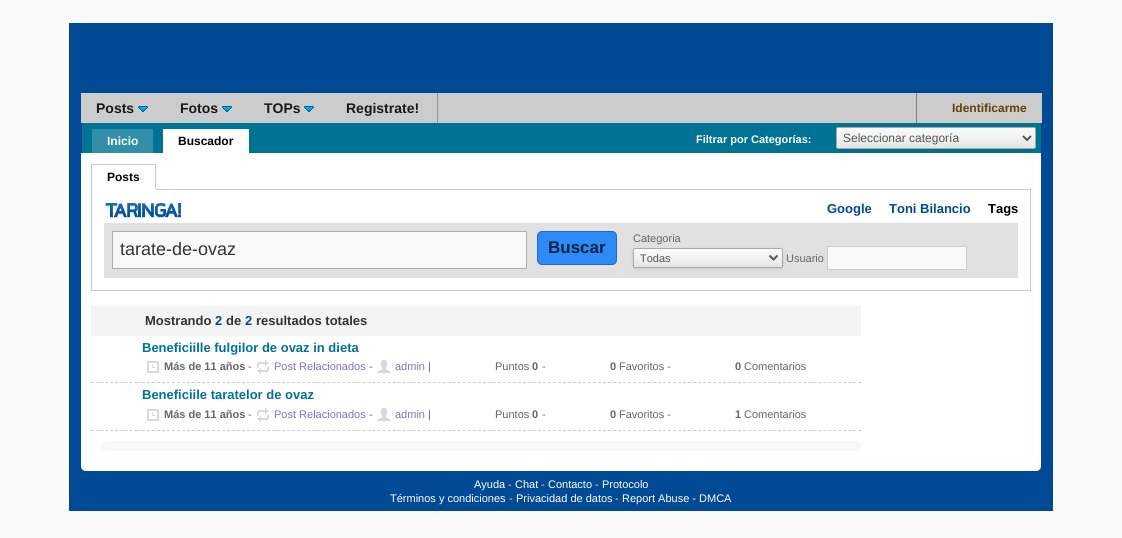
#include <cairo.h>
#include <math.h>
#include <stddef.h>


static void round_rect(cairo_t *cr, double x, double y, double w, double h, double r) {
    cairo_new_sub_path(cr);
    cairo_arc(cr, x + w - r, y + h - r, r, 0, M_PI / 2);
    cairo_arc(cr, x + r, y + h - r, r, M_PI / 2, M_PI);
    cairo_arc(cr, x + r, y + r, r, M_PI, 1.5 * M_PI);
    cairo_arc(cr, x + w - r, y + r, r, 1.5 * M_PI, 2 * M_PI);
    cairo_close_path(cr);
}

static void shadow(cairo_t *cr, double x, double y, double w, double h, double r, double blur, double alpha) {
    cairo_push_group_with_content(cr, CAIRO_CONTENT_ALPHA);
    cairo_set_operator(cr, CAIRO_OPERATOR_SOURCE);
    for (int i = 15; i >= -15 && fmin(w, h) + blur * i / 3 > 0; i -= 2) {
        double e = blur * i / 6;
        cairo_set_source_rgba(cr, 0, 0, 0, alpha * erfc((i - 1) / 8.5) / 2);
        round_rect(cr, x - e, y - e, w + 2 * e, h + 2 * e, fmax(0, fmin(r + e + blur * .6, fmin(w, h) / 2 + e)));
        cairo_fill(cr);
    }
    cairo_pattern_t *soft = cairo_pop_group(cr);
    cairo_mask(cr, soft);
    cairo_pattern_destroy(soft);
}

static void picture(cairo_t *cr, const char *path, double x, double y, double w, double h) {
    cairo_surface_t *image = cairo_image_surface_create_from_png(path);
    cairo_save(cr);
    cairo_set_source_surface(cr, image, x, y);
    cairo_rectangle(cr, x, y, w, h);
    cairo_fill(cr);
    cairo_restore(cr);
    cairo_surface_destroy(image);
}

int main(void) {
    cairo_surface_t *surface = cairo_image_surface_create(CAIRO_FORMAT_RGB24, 1122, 538);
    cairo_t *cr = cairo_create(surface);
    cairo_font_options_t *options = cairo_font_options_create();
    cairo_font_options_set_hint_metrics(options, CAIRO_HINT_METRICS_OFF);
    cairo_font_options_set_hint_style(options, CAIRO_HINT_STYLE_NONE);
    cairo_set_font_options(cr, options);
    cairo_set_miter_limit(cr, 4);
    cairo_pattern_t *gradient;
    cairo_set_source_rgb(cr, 0.98, 0.98, 0.98);
    cairo_paint(cr);
    cairo_set_source_rgb(cr, 0, 0.29, 0.584);
    cairo_rectangle(cr, 69, 23, 984, 488);
    cairo_fill(cr);
    cairo_set_source_rgb(cr, 0.8, 0.8, 0.8);
    cairo_rectangle(cr, 81, 93, 961, 30);
    cairo_fill(cr);
    cairo_select_font_face(cr, "Liberation Sans", CAIRO_FONT_SLANT_NORMAL, CAIRO_FONT_WEIGHT_BOLD);
    cairo_set_font_size(cr, 14);
    cairo_set_source_rgb(cr, 0.102, 0.094, 0.094);
    cairo_move_to(cr, 96, 113);
    cairo_show_text(cr, "Posts");
    picture(cr, "img1.png", 138, 106, 10, 6);
    cairo_move_to(cr, 180, 113);
    cairo_show_text(cr, "Fotos");
    picture(cr, "img1.png", 222, 106, 10, 6);
    cairo_move_to(cr, 264, 113);
    cairo_show_text(cr, "TOPs");
    picture(cr, "img1.png", 304, 106, 10, 6);
    cairo_set_source_rgb(cr, 0.6, 0.6, 0.6);
    cairo_rectangle(cr, 437, 93, 1, 30);
    cairo_fill(cr);
    cairo_set_source_rgb(cr, 0.102, 0.094, 0.094);
    cairo_move_to(cr, 346, 113);
    cairo_show_text(cr, "Registrate!");
    cairo_set_source_rgb(cr, 0.482, 0.482, 0.482);
    cairo_rectangle(cr, 916, 93, 1, 30);
    cairo_fill(cr);
    cairo_set_font_size(cr, 12);
    cairo_set_source_rgb(cr, 0.396, 0.251, 0.024);
    cairo_move_to(cr, 952, 112);
    cairo_show_text(cr, "Identificarme");
    cairo_set_source_rgb(cr, 0, 0.451, 0.58);
    cairo_rectangle(cr, 82, 123, 959, 30);
    cairo_fill(cr);
    cairo_set_source_rgb(cr, 0, 0.275, 0.58);
    cairo_rectangle(cr, 1041, 123, 1, 30);
    cairo_fill(cr);
    cairo_rectangle(cr, 81, 123, 1, 30);
    cairo_fill(cr);
    cairo_set_source_rgb(cr, 0.2, 0.561, 0.663);
    cairo_rectangle(cr, 92, 129, 61, 24);
    cairo_fill(cr);
    cairo_set_source_rgb(cr, 1, 1, 1);
    cairo_move_to(cr, 107, 145);
    cairo_show_text(cr, "Inicio");
    cairo_rectangle(cr, 163, 129, 86, 24);
    cairo_fill(cr);
    cairo_set_source_rgb(cr, 0, 0, 0);
    cairo_move_to(cr, 178, 145);
    cairo_show_text(cr, "Buscador");
    cairo_set_font_size(cr, 11);
    cairo_set_source_rgb(cr, 1, 1, 1);
    cairo_move_to(cr, 696, 143);
    cairo_show_text(cr, "Filtrar por Categorías:");
    cairo_new_path(cr);
    cairo_move_to(cr, 81, 153);
    cairo_line_to(cr, 1041, 153);
    cairo_line_to(cr, 1041, 466);
    cairo_curve_to(cr, 1041, 469, 1039, 471, 1036, 471);
    cairo_line_to(cr, 86, 471);
    cairo_curve_to(cr, 83, 471, 81, 469, 81, 466);
    cairo_close_path(cr);
    cairo_fill(cr);
    cairo_set_source_rgb(cr, 0, 0, 0);
    shadow(cr, 836, 128, 200, 22, 2, 1.5, 0.1);
    gradient = cairo_pattern_create_linear(936, 128, 936, 148);
    cairo_pattern_add_color_stop_rgba(gradient, 0, 0.98, 0.98, 0.98, 1);
    cairo_pattern_add_color_stop_rgba(gradient, 0.4, 0.957, 0.957, 0.957, 1);
    cairo_pattern_add_color_stop_rgba(gradient, 1, 0.898, 0.898, 0.898, 1);
    cairo_set_source(cr, gradient);
    cairo_pattern_destroy(gradient);
    cairo_rectangle(cr, 837, 128, 198, 20);
    cairo_fill(cr);
    round_rect(cr, 836.5, 127.5, 199, 21, 1.5);
    cairo_set_source_rgb(cr, 0.667, 0.667, 0.667);
    cairo_set_line_width(cr, 1);
    cairo_stroke(cr);
    cairo_new_path(cr);
    cairo_move_to(cr, 1023, 136);
    cairo_line_to(cr, 1027, 140);
    cairo_line_to(cr, 1031, 136);
    cairo_set_source_rgb(cr, 0.333, 0.333, 0.333);
    cairo_set_line_width(cr, 2);
    cairo_stroke(cr);
    cairo_select_font_face(cr, "Liberation Sans", CAIRO_FONT_SLANT_NORMAL, CAIRO_FONT_WEIGHT_NORMAL);
    cairo_set_font_size(cr, 12);
    cairo_move_to(cr, 843, 142);
    cairo_show_text(cr, "Seleccionar categoría");
    cairo_set_source_rgb(cr, 0.8, 0.8, 0.8);
    cairo_rectangle(cr, 91, 164, 65, 1);
    cairo_fill(cr);
    cairo_rectangle(cr, 91.5, 189.5, 939, 101);
    cairo_set_line_width(cr, 1);
    cairo_stroke(cr);
    cairo_rectangle(cr, 155, 164, 1, 26);
    cairo_fill(cr);
    cairo_set_source_rgb(cr, 1, 1, 1);
    cairo_rectangle(cr, 91, 189, 65, 1);
    cairo_fill(cr);
    cairo_set_source_rgb(cr, 0.8, 0.8, 0.8);
    cairo_rectangle(cr, 91, 164, 1, 26);
    cairo_fill(cr);
    cairo_select_font_face(cr, "Liberation Sans", CAIRO_FONT_SLANT_NORMAL, CAIRO_FONT_WEIGHT_BOLD);
    cairo_set_source_rgb(cr, 0, 0, 0);
    cairo_move_to(cr, 107, 181);
    cairo_show_text(cr, "Posts");
    picture(cr, "img2.png", 105, 203, 77, 15);
    cairo_set_font_size(cr, 13);
    cairo_set_source_rgb(cr, 0, 0.29, 0.584);
    cairo_move_to(cr, 827, 213);
    cairo_show_text(cr, "Google");
    cairo_move_to(cr, 889, 213);
    cairo_show_text(cr, "Toni Bilancio");
    cairo_set_source_rgb(cr, 0, 0, 0);
    cairo_move_to(cr, 988, 213);
    cairo_show_text(cr, "Tags");
    cairo_set_source_rgb(cr, 0.882, 0.882, 0.882);
    cairo_rectangle(cr, 104, 223, 914, 55);
    cairo_fill(cr);
    cairo_set_source_rgb(cr, 0.976, 0.976, 0.976);
    cairo_rectangle(cr, 112.5, 231.5, 414, 37);
    cairo_fill_preserve(cr);
    cairo_set_source_rgb(cr, 0.686, 0.686, 0.686);
    cairo_stroke(cr);
    cairo_select_font_face(cr, "Liberation Sans", CAIRO_FONT_SLANT_NORMAL, CAIRO_FONT_WEIGHT_NORMAL);
    cairo_set_font_size(cr, 18);
    cairo_set_source_rgb(cr, 0.2, 0.2, 0.2);
    cairo_move_to(cr, 120, 255);
    cairo_show_text(cr, "tarate-de-ovaz");
    cairo_set_source_rgb(cr, 0.18, 0.541, 0.961);
    round_rect(cr, 537.5, 231.5, 79, 33, 4.5);
    cairo_fill_preserve(cr);
    cairo_set_source_rgb(cr, 0.11, 0.42, 0.776);
    cairo_stroke(cr);
    cairo_select_font_face(cr, "Liberation Sans", CAIRO_FONT_SLANT_NORMAL, CAIRO_FONT_WEIGHT_BOLD);
    cairo_set_font_size(cr, 17);
    cairo_set_source_rgb(cr, 0.012, 0.137, 0.259);
    cairo_move_to(cr, 548, 253);
    cairo_show_text(cr, "Buscar");
    cairo_select_font_face(cr, "Liberation Sans", CAIRO_FONT_SLANT_NORMAL, CAIRO_FONT_WEIGHT_NORMAL);
    cairo_set_font_size(cr, 11);
    cairo_set_source_rgb(cr, 0.4, 0.4, 0.4);
    cairo_move_to(cr, 633, 242);
    cairo_show_text(cr, "Categoria");
    cairo_set_source_rgb(cr, 0, 0, 0);
    shadow(cr, 633, 249, 150, 20, 2, 1.5, 0.1);
    gradient = cairo_pattern_create_linear(708, 249, 708, 267);
    cairo_pattern_add_color_stop_rgba(gradient, 0, 0.98, 0.98, 0.98, 1);
    cairo_pattern_add_color_stop_rgba(gradient, 0.4, 0.957, 0.957, 0.957, 1);
    cairo_pattern_add_color_stop_rgba(gradient, 1, 0.898, 0.898, 0.898, 1);
    cairo_set_source(cr, gradient);
    cairo_pattern_destroy(gradient);
    cairo_rectangle(cr, 634, 249, 148, 18);
    cairo_fill(cr);
    round_rect(cr, 633.5, 248.5, 149, 19, 1.5);
    cairo_set_source_rgb(cr, 0.667, 0.667, 0.667);
    cairo_stroke(cr);
    cairo_new_path(cr);
    cairo_move_to(cr, 769.5, 255.5);
    cairo_line_to(cr, 773.5, 259.5);
    cairo_line_to(cr, 777.5, 255.5);
    cairo_set_source_rgb(cr, 0.333, 0.333, 0.333);
    cairo_set_line_width(cr, 2);
    cairo_stroke(cr);
    cairo_move_to(cr, 640, 262);
    cairo_show_text(cr, "Todas");
    cairo_set_source_rgb(cr, 0.4, 0.4, 0.4);
    cairo_move_to(cr, 786, 262);
    cairo_show_text(cr, "Usuario");
    cairo_set_source_rgb(cr, 0.976, 0.976, 0.976);
    cairo_rectangle(cr, 827.5, 246.5, 139, 23);
    cairo_fill_preserve(cr);
    cairo_set_source_rgb(cr, 0.8, 0.8, 0.8);
    cairo_set_line_width(cr, 1);
    cairo_stroke(cr);
    cairo_set_source_rgb(cr, 0.953, 0.953, 0.953);
    cairo_rectangle(cr, 91, 306, 770, 30);
    cairo_fill(cr);
    cairo_select_font_face(cr, "Liberation Sans", CAIRO_FONT_SLANT_NORMAL, CAIRO_FONT_WEIGHT_BOLD);
    cairo_set_font_size(cr, 13);
    cairo_set_source_rgb(cr, 0.2, 0.2, 0.2);
    cairo_move_to(cr, 145, 325);
    cairo_show_text(cr, "Mostrando");
    cairo_set_source_rgb(cr, 0, 0.29, 0.584);
    cairo_move_to(cr, 215, 325);
    cairo_show_text(cr, "2");
    cairo_set_source_rgb(cr, 0.2, 0.2, 0.2);
    cairo_move_to(cr, 226, 325);
    cairo_show_text(cr, "de");
    cairo_set_source_rgb(cr, 0, 0.29, 0.584);
    cairo_move_to(cr, 245, 325);
    cairo_show_text(cr, "2");
    cairo_set_source_rgb(cr, 0.2, 0.2, 0.2);
    cairo_move_to(cr, 256, 325);
    cairo_show_text(cr, "resultados totales");
    cairo_new_path(cr);
    cairo_move_to(cr, 137, 382.5);
    cairo_line_to(cr, 861, 382.5);
    cairo_set_source_rgb(cr, 0.8, 0.8, 0.8);
    cairo_set_dash(cr, (double[]){3, 2.01}, 2, 0);
    cairo_stroke(cr);
    cairo_set_source_rgb(cr, 0, 0.451, 0.58);
    cairo_move_to(cr, 142, 352);
    cairo_show_text(cr, "Beneficiille fulgilor de ovaz in dieta");
    picture(cr, "img3.png", 147, 361, 12, 12);
    cairo_set_font_size(cr, 11);
    cairo_set_source_rgb(cr, 0.4, 0.4, 0.4);
    cairo_move_to(cr, 164, 370);
    cairo_show_text(cr, "Más de 11 años");
    cairo_select_font_face(cr, "Liberation Sans", CAIRO_FONT_SLANT_NORMAL, CAIRO_FONT_WEIGHT_NORMAL);
    cairo_move_to(cr, 248, 370);
    cairo_show_text(cr, "-");
    picture(cr, "img4.png", 257, 360, 12, 14);
    cairo_set_source_rgb(cr, 0.467, 0.467, 0.8);
    cairo_move_to(cr, 274, 370);
    cairo_show_text(cr, "Post Relacionados");
    cairo_set_source_rgb(cr, 0.4, 0.4, 0.4);
    cairo_move_to(cr, 369, 370);
    cairo_show_text(cr, "-");
    picture(cr, "img5.png", 377, 360, 14, 13);
    cairo_set_source_rgb(cr, 0.467, 0.467, 0.8);
    cairo_move_to(cr, 395, 370);
    cairo_show_text(cr, "admin");
    cairo_set_source_rgb(cr, 0.4, 0.4, 0.4);
    cairo_move_to(cr, 428, 370);
    cairo_show_text(cr, "|");
    cairo_move_to(cr, 495, 370);
    cairo_show_text(cr, "Puntos");
    cairo_select_font_face(cr, "Liberation Sans", CAIRO_FONT_SLANT_NORMAL, CAIRO_FONT_WEIGHT_BOLD);
    cairo_move_to(cr, 532, 370);
    cairo_show_text(cr, "0");
    cairo_select_font_face(cr, "Liberation Sans", CAIRO_FONT_SLANT_NORMAL, CAIRO_FONT_WEIGHT_NORMAL);
    cairo_move_to(cr, 542, 370);
    cairo_show_text(cr, "-");
    cairo_select_font_face(cr, "Liberation Sans", CAIRO_FONT_SLANT_NORMAL, CAIRO_FONT_WEIGHT_BOLD);
    cairo_move_to(cr, 610, 370);
    cairo_show_text(cr, "0");
    cairo_select_font_face(cr, "Liberation Sans", CAIRO_FONT_SLANT_NORMAL, CAIRO_FONT_WEIGHT_NORMAL);
    cairo_move_to(cr, 619, 370);
    cairo_show_text(cr, "Favoritos -");
    cairo_select_font_face(cr, "Liberation Sans", CAIRO_FONT_SLANT_NORMAL, CAIRO_FONT_WEIGHT_BOLD);
    cairo_move_to(cr, 735, 370);
    cairo_show_text(cr, "0");
    cairo_select_font_face(cr, "Liberation Sans", CAIRO_FONT_SLANT_NORMAL, CAIRO_FONT_WEIGHT_NORMAL);
    cairo_move_to(cr, 744, 370);
    cairo_show_text(cr, "Comentarios");
    cairo_new_path(cr);
    cairo_move_to(cr, 91, 382.5);
    cairo_line_to(cr, 137, 382.5);
    cairo_set_source_rgb(cr, 0.8, 0.8, 0.8);
    cairo_set_dash(cr, (double[]){3, 1.78}, 2, 0);
    cairo_stroke(cr);
    cairo_new_path(cr);
    cairo_move_to(cr, 137, 430.5);
    cairo_line_to(cr, 861, 430.5);
    cairo_set_dash(cr, (double[]){3, 2.01}, 2, 0);
    cairo_stroke(cr);
    cairo_select_font_face(cr, "Liberation Sans", CAIRO_FONT_SLANT_NORMAL, CAIRO_FONT_WEIGHT_BOLD);
    cairo_set_font_size(cr, 13);
    cairo_set_source_rgb(cr, 0, 0.451, 0.58);
    cairo_move_to(cr, 142, 399);
    cairo_show_text(cr, "Beneficiile taratelor de ovaz");
    picture(cr, "img3.png", 147, 409, 12, 12);
    cairo_set_font_size(cr, 11);
    cairo_set_source_rgb(cr, 0.4, 0.4, 0.4);
    cairo_move_to(cr, 164, 418);
    cairo_show_text(cr, "Más de 11 años");
    cairo_select_font_face(cr, "Liberation Sans", CAIRO_FONT_SLANT_NORMAL, CAIRO_FONT_WEIGHT_NORMAL);
    cairo_move_to(cr, 248, 418);
    cairo_show_text(cr, "-");
    picture(cr, "img4.png", 257, 408, 12, 14);
    cairo_set_source_rgb(cr, 0.467, 0.467, 0.8);
    cairo_move_to(cr, 274, 418);
    cairo_show_text(cr, "Post Relacionados");
    cairo_set_source_rgb(cr, 0.4, 0.4, 0.4);
    cairo_move_to(cr, 369, 418);
    cairo_show_text(cr, "-");
    picture(cr, "img5.png", 377, 408, 14, 13);
    cairo_set_source_rgb(cr, 0.467, 0.467, 0.8);
    cairo_move_to(cr, 395, 418);
    cairo_show_text(cr, "admin");
    cairo_set_source_rgb(cr, 0.4, 0.4, 0.4);
    cairo_move_to(cr, 428, 418);
    cairo_show_text(cr, "|");
    cairo_move_to(cr, 495, 418);
    cairo_show_text(cr, "Puntos");
    cairo_select_font_face(cr, "Liberation Sans", CAIRO_FONT_SLANT_NORMAL, CAIRO_FONT_WEIGHT_BOLD);
    cairo_move_to(cr, 532, 418);
    cairo_show_text(cr, "0");
    cairo_select_font_face(cr, "Liberation Sans", CAIRO_FONT_SLANT_NORMAL, CAIRO_FONT_WEIGHT_NORMAL);
    cairo_move_to(cr, 542, 418);
    cairo_show_text(cr, "-");
    cairo_select_font_face(cr, "Liberation Sans", CAIRO_FONT_SLANT_NORMAL, CAIRO_FONT_WEIGHT_BOLD);
    cairo_move_to(cr, 610, 418);
    cairo_show_text(cr, "0");
    cairo_select_font_face(cr, "Liberation Sans", CAIRO_FONT_SLANT_NORMAL, CAIRO_FONT_WEIGHT_NORMAL);
    cairo_move_to(cr, 619, 418);
    cairo_show_text(cr, "Favoritos -");
    cairo_select_font_face(cr, "Liberation Sans", CAIRO_FONT_SLANT_NORMAL, CAIRO_FONT_WEIGHT_BOLD);
    cairo_move_to(cr, 735, 418);
    cairo_show_text(cr, "1");
    cairo_select_font_face(cr, "Liberation Sans", CAIRO_FONT_SLANT_NORMAL, CAIRO_FONT_WEIGHT_NORMAL);
    cairo_move_to(cr, 744, 418);
    cairo_show_text(cr, "Comentarios");
    cairo_new_path(cr);
    cairo_move_to(cr, 91, 430.5);
    cairo_line_to(cr, 137, 430.5);
    cairo_set_source_rgb(cr, 0.8, 0.8, 0.8);
    cairo_set_dash(cr, (double[]){3, 1.78}, 2, 0);
    cairo_stroke(cr);
    cairo_set_source_rgb(cr, 0.969, 0.969, 0.969);
    round_rect(cr, 101, 441, 760, 10, 5);
    cairo_fill(cr);
    cairo_set_source_rgb(cr, 1, 1, 1);
    cairo_move_to(cr, 474, 488);
    cairo_show_text(cr, "Ayuda");
    cairo_set_source_rgb(cr, 0.882, 0.882, 0.882);
    cairo_move_to(cr, 508, 488);
    cairo_show_text(cr, "-");
    cairo_set_source_rgb(cr, 1, 1, 1);
    cairo_move_to(cr, 515, 488);
    cairo_show_text(cr, "Chat");
    cairo_set_source_rgb(cr, 0.882, 0.882, 0.882);
    cairo_move_to(cr, 541, 488);
    cairo_show_text(cr, "-");
    cairo_set_source_rgb(cr, 1, 1, 1);
    cairo_move_to(cr, 548, 488);
    cairo_show_text(cr, "Contacto");
    cairo_set_source_rgb(cr, 0.882, 0.882, 0.882);
    cairo_move_to(cr, 595, 488);
    cairo_show_text(cr, "-");
    cairo_set_source_rgb(cr, 1, 1, 1);
    cairo_move_to(cr, 602, 488);
    cairo_show_text(cr, "Protocolo");
    cairo_move_to(cr, 390, 502);
    cairo_show_text(cr, "Términos y condiciones");
    cairo_set_source_rgb(cr, 0.882, 0.882, 0.882);
    cairo_move_to(cr, 509, 502);
    cairo_show_text(cr, "-");
    cairo_set_source_rgb(cr, 1, 1, 1);
    cairo_move_to(cr, 516, 502);
    cairo_show_text(cr, "Privacidad de datos");
    cairo_set_source_rgb(cr, 0.882, 0.882, 0.882);
    cairo_move_to(cr, 615, 502);
    cairo_show_text(cr, "-");
    cairo_set_source_rgb(cr, 1, 1, 1);
    cairo_move_to(cr, 622, 502);
    cairo_show_text(cr, "Report Abuse - DMCA");
    cairo_surface_write_to_png(surface, "page.png");
    cairo_font_options_destroy(options);
    cairo_destroy(cr);
    cairo_surface_destroy(surface);
    return 0;
}
